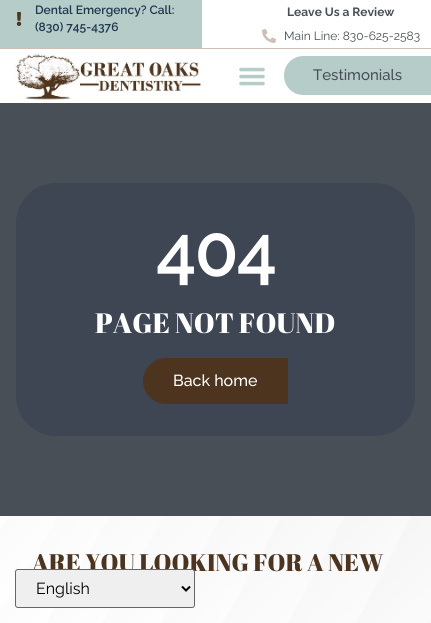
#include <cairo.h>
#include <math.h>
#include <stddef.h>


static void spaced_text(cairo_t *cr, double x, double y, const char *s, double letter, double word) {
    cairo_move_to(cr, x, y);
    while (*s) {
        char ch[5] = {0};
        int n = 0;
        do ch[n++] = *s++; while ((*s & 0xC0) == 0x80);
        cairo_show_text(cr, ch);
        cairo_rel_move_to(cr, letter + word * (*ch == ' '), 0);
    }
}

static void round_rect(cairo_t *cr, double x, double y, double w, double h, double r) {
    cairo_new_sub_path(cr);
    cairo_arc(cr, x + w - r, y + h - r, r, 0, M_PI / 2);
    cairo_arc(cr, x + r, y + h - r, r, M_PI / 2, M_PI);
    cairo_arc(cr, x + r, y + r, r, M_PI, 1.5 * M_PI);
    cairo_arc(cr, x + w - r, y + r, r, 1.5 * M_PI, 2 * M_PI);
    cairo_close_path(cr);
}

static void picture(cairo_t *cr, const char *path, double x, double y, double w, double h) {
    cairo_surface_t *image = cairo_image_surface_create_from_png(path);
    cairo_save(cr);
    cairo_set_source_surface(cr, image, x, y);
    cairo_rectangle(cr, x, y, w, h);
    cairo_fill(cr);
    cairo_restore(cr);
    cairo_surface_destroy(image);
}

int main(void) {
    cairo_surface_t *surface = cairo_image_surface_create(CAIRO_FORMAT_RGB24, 431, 623);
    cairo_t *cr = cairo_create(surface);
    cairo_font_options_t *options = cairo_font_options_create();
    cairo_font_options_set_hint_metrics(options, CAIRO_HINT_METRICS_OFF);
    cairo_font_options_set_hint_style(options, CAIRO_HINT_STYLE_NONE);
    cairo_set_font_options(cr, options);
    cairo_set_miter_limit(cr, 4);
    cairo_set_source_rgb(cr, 1, 1, 1);
    cairo_paint(cr);
    cairo_set_source_rgb(cr, 0.8, 0.753, 0.714);
    cairo_rectangle(cr, 0, 48, 431, 1);
    cairo_fill(cr);
    cairo_set_source_rgb(cr, 0.714, 0.8, 0.784);
    cairo_rectangle(cr, 0, 0, 202, 48);
    cairo_fill(cr);
    picture(cr, "img1.png", 16, 12, 6, 14);
    cairo_select_font_face(cr, "Raleway SemiBold", CAIRO_FONT_SLANT_NORMAL, CAIRO_FONT_WEIGHT_NORMAL);
    cairo_set_font_size(cr, 12);
    cairo_set_source_rgb(cr, 0.122, 0.22, 0.302);
    cairo_move_to(cr, 35, 14);
    cairo_show_text(cr, "Dental Emergency? Call:");
    cairo_move_to(cr, 35, 31);
    cairo_show_text(cr, "(830) 745-4376");
    cairo_select_font_face(cr, "Raleway", CAIRO_FONT_SLANT_NORMAL, CAIRO_FONT_WEIGHT_BOLD);
    cairo_set_source_rgb(cr, 0.282, 0.31, 0.337);
    cairo_move_to(cr, 287, 16);
    cairo_show_text(cr, "Leave Us a Review");
    picture(cr, "img2.png", 262, 29, 14, 14);
    cairo_select_font_face(cr, "Raleway", CAIRO_FONT_SLANT_NORMAL, CAIRO_FONT_WEIGHT_NORMAL);
    cairo_move_to(cr, 284, 40);
    cairo_show_text(cr, "Main Line: 830-625-2583");
    picture(cr, "img3.png", 14, 53, 188, 47);
    picture(cr, "img4.png", 239, 67, 26, 19);
    cairo_set_source_rgb(cr, 0.714, 0.8, 0.784);
    cairo_new_path(cr);
    cairo_move_to(cr, 303.5, 56);
    cairo_line_to(cr, 431, 56);
    cairo_line_to(cr, 431, 95);
    cairo_line_to(cr, 303.5, 95);
    cairo_curve_to(cr, 292.5, 95, 284, 86.5, 284, 75.5);
    cairo_curve_to(cr, 284, 64.5, 292.5, 56, 303.5, 56);
    cairo_close_path(cr);
    cairo_fill(cr);
    cairo_select_font_face(cr, "Raleway Medium", CAIRO_FONT_SLANT_NORMAL, CAIRO_FONT_WEIGHT_NORMAL);
    cairo_set_font_size(cr, 15);
    cairo_set_source_rgb(cr, 0.282, 0.31, 0.337);
    cairo_move_to(cr, 313, 80);
    cairo_show_text(cr, "Testimonials");
    cairo_rectangle(cr, 0, 103, 431, 413);
    cairo_fill(cr);
    cairo_set_source_rgb(cr, 0.239, 0.275, 0.322);
    round_rect(cr, 16, 183, 399, 253, 40);
    cairo_fill(cr);
    cairo_select_font_face(cr, "Raleway SemiBold", CAIRO_FONT_SLANT_NORMAL, CAIRO_FONT_WEIGHT_NORMAL);
    cairo_set_font_size(cr, 72);
    cairo_set_source_rgb(cr, 1, 1, 1);
    spaced_text(cr, 156, 276, "404", -2, 0);
    cairo_select_font_face(cr, "Abril Fatface", CAIRO_FONT_SLANT_NORMAL, CAIRO_FONT_WEIGHT_NORMAL);
    cairo_set_font_size(cr, 28);
    cairo_move_to(cr, 95, 333);
    cairo_show_text(cr, "PAGE NOT FOUND");
    cairo_set_source_rgb(cr, 0.302, 0.204, 0.122);
    cairo_new_path(cr);
    cairo_move_to(cr, 166, 358);
    cairo_line_to(cr, 288, 358);
    cairo_line_to(cr, 288, 404);
    cairo_line_to(cr, 166, 404);
    cairo_curve_to(cr, 153.5, 404, 143, 393.5, 143, 381);
    cairo_curve_to(cr, 143, 368.5, 153.5, 358, 166, 358);
    cairo_close_path(cr);
    cairo_fill(cr);
    cairo_select_font_face(cr, "Raleway Medium", CAIRO_FONT_SLANT_NORMAL, CAIRO_FONT_WEIGHT_NORMAL);
    cairo_set_font_size(cr, 16);
    cairo_set_source_rgb(cr, 1, 1, 1);
    cairo_move_to(cr, 173, 386);
    cairo_show_text(cr, "Back home");
    picture(cr, "img5.png", 0, 516, 431, 107);
    cairo_select_font_face(cr, "Abril Fatface", CAIRO_FONT_SLANT_NORMAL, CAIRO_FONT_WEIGHT_NORMAL);
    cairo_set_font_size(cr, 24);
    cairo_set_source_rgb(cr, 0.302, 0.204, 0.122);
    cairo_move_to(cr, 32, 571);
    cairo_show_text(cr, "ARE YOU LOOKING FOR A NEW");
    cairo_set_source_rgb(cr, 0.937, 0.937, 0.937);
    round_rect(cr, 15.5, 569.5, 179, 38, 2.5);
    cairo_fill_preserve(cr);
    cairo_set_source_rgb(cr, 0.4, 0.4, 0.4);
    cairo_set_line_width(cr, 1);
    cairo_stroke(cr);
    cairo_new_path(cr);
    cairo_move_to(cr, 182, 586.5);
    cairo_line_to(cr, 186, 590.5);
    cairo_line_to(cr, 190, 586.5);
    cairo_set_source_rgb(cr, 0, 0, 0);
    cairo_set_line_width(cr, 2);
    cairo_stroke(cr);
    cairo_select_font_face(cr, "Raleway", CAIRO_FONT_SLANT_NORMAL, CAIRO_FONT_WEIGHT_NORMAL);
    cairo_set_font_size(cr, 16);
    cairo_move_to(cr, 36, 594);
    cairo_show_text(cr, "English");
    cairo_surface_write_to_png(surface, "page.png");
    cairo_font_options_destroy(options);
    cairo_destroy(cr);
    cairo_surface_destroy(surface);
    return 0;
}
